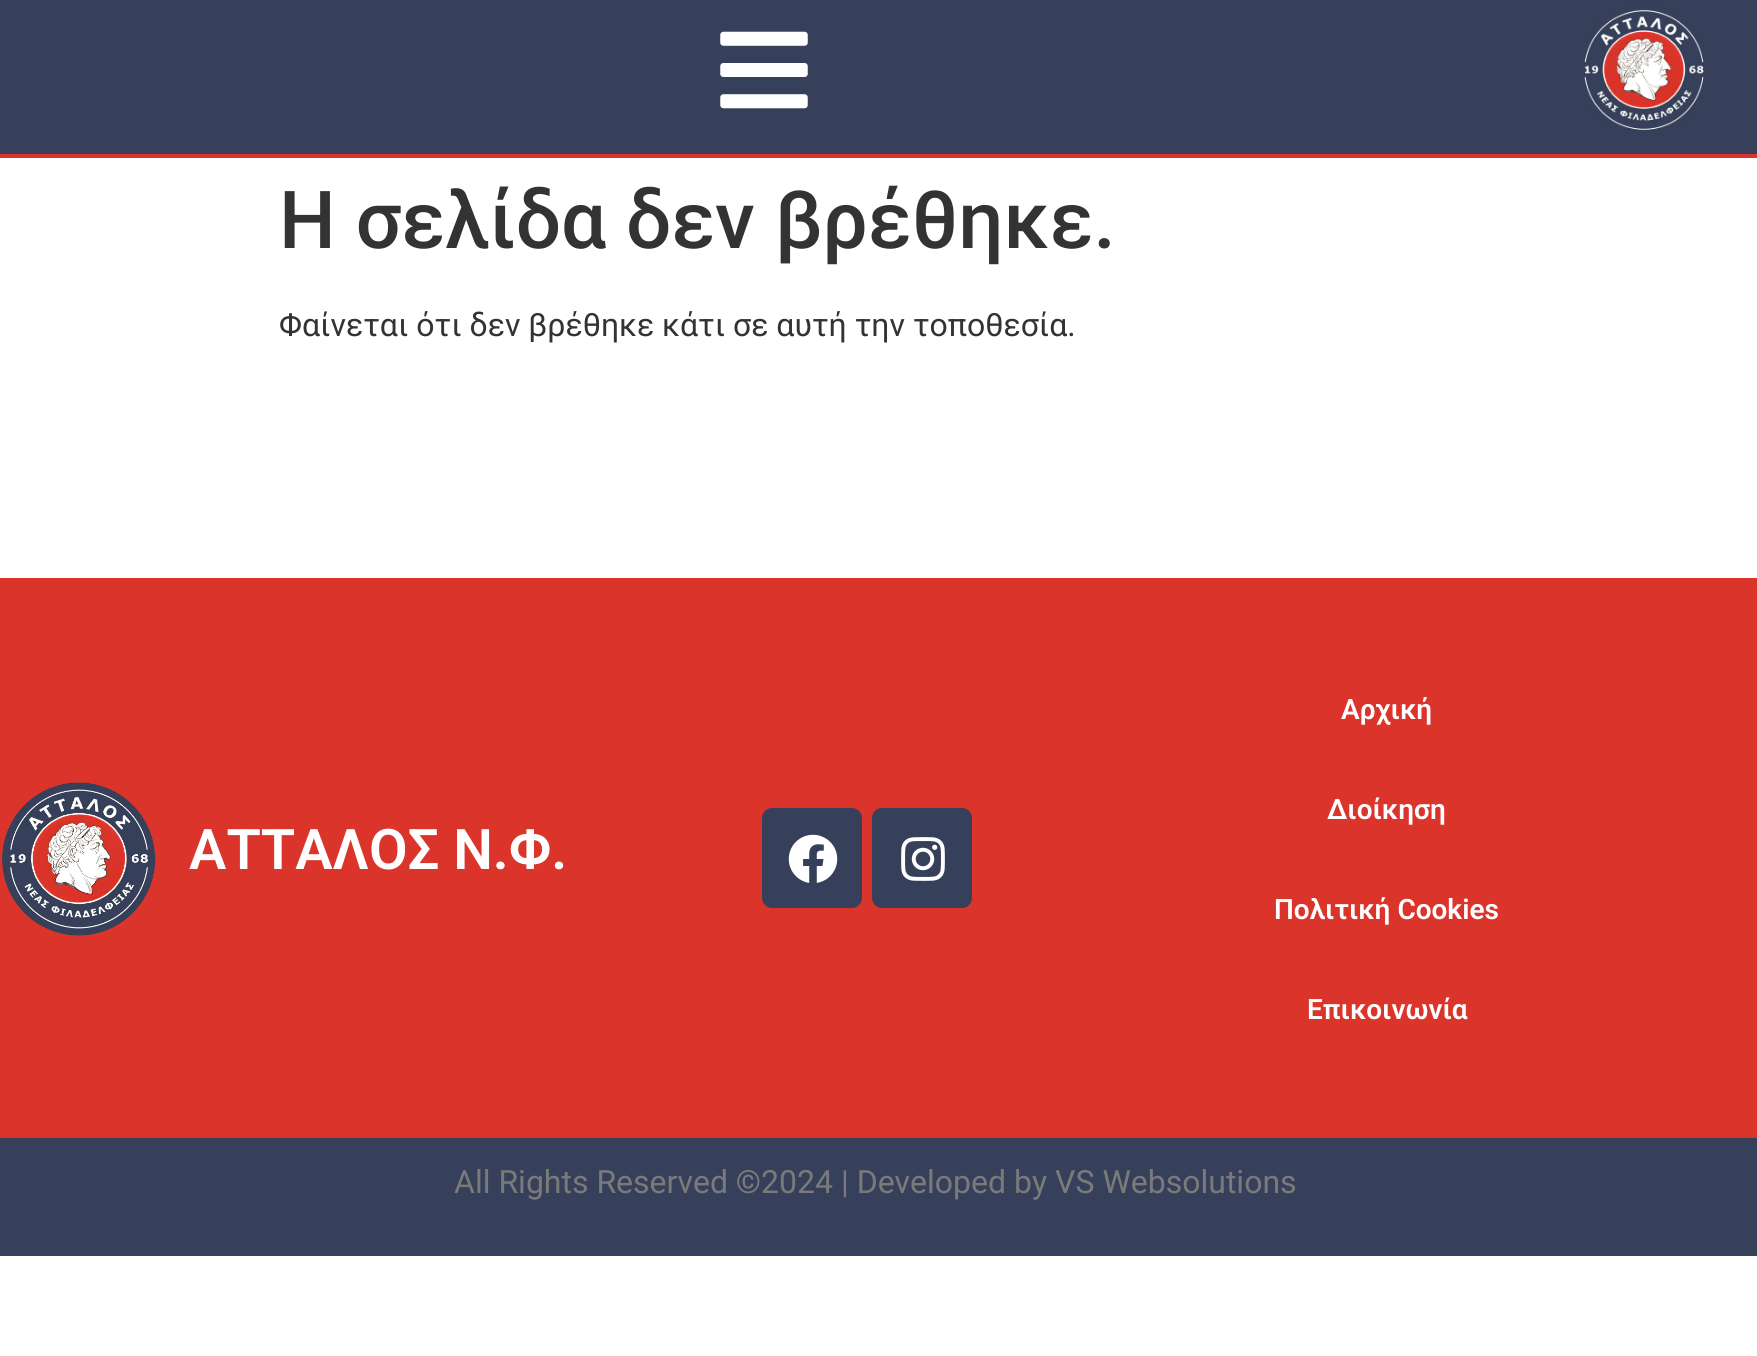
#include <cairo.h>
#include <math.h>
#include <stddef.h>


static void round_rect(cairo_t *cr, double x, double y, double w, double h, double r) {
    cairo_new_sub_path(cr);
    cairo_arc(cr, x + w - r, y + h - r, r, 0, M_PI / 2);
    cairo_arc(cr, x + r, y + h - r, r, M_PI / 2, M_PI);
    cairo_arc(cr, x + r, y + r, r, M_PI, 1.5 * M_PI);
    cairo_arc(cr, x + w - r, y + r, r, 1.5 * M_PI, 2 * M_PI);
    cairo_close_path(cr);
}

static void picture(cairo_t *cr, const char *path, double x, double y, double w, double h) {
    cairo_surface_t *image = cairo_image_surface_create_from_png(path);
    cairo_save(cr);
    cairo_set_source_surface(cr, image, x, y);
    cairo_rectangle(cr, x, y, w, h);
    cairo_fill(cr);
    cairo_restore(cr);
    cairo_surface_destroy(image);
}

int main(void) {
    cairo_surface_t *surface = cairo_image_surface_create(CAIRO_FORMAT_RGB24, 1757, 1356);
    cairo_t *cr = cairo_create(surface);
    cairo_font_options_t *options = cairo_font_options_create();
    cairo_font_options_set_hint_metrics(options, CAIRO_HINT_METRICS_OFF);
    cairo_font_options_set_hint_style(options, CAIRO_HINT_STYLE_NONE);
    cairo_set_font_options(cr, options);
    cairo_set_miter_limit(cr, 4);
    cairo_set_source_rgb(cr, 1, 1, 1);
    cairo_paint(cr);
    cairo_set_source_rgb(cr, 0.212, 0.251, 0.353);
    cairo_rectangle(cr, 0, 0, 1757, 154);
    cairo_fill(cr);
    cairo_set_source_rgb(cr, 0.859, 0.204, 0.169);
    cairo_rectangle(cr, 0, 154, 1757, 4);
    cairo_fill(cr);
    picture(cr, "img1.png", 720, 31, 88, 78);
    picture(cr, "img2.png", 1584, 5, 120, 125);
    cairo_select_font_face(cr, "Roboto Medium", CAIRO_FONT_SLANT_NORMAL, CAIRO_FONT_WEIGHT_NORMAL);
    cairo_set_font_size(cr, 80);
    cairo_set_source_rgb(cr, 0.2, 0.2, 0.2);
    cairo_move_to(cr, 279, 248);
    cairo_show_text(cr, "Η σελίδα δεν βρέθηκε.");
    cairo_select_font_face(cr, "Roboto", CAIRO_FONT_SLANT_NORMAL, CAIRO_FONT_WEIGHT_NORMAL);
    cairo_set_font_size(cr, 32);
    cairo_move_to(cr, 279, 336);
    cairo_show_text(cr, "Φαίνεται ότι δεν βρέθηκε κάτι σε αυτή την τοποθεσία.");
    cairo_set_source_rgb(cr, 0.859, 0.204, 0.169);
    cairo_rectangle(cr, 0, 578, 1757, 560);
    cairo_fill(cr);
    picture(cr, "img3.png", 2, 782, 154, 154);
    cairo_select_font_face(cr, "Roboto SemiBold", CAIRO_FONT_SLANT_NORMAL, CAIRO_FONT_WEIGHT_NORMAL);
    cairo_set_font_size(cr, 56);
    cairo_set_source_rgb(cr, 1, 1, 1);
    cairo_move_to(cr, 189, 869);
    cairo_show_text(cr, "ΑΤΤΑΛΟΣ Ν.Φ.");
    cairo_set_source_rgb(cr, 0.212, 0.251, 0.353);
    round_rect(cr, 762, 808, 100, 100, 10);
    cairo_fill(cr);
    picture(cr, "img4.png", 788, 834, 50, 49);
    round_rect(cr, 872, 808, 100, 100, 10);
    cairo_fill(cr);
    picture(cr, "img5.png", 901, 837, 44, 44);
    cairo_set_font_size(cr, 28);
    cairo_set_source_rgb(cr, 1, 1, 1);
    cairo_move_to(cr, 1341, 719);
    cairo_show_text(cr, "Αρχική");
    cairo_move_to(cr, 1327, 819);
    cairo_show_text(cr, "Διοίκηση");
    cairo_move_to(cr, 1274, 919);
    cairo_show_text(cr, "Πολιτική Cookies");
    cairo_move_to(cr, 1307, 1019);
    cairo_show_text(cr, "Επικοινωνία");
    cairo_set_source_rgb(cr, 0.212, 0.251, 0.353);
    cairo_rectangle(cr, 0, 1138, 1757, 118);
    cairo_fill(cr);
    cairo_select_font_face(cr, "Roboto", CAIRO_FONT_SLANT_NORMAL, CAIRO_FONT_WEIGHT_NORMAL);
    cairo_set_font_size(cr, 32);
    cairo_set_source_rgb(cr, 0.478, 0.478, 0.478);
    cairo_move_to(cr, 454, 1193);
    cairo_show_text(cr, "All Rights Reserved ©2024 | Developed by VS Websolutions");
    cairo_surface_write_to_png(surface, "page.png");
    cairo_font_options_destroy(options);
    cairo_destroy(cr);
    cairo_surface_destroy(surface);
    return 0;
}
